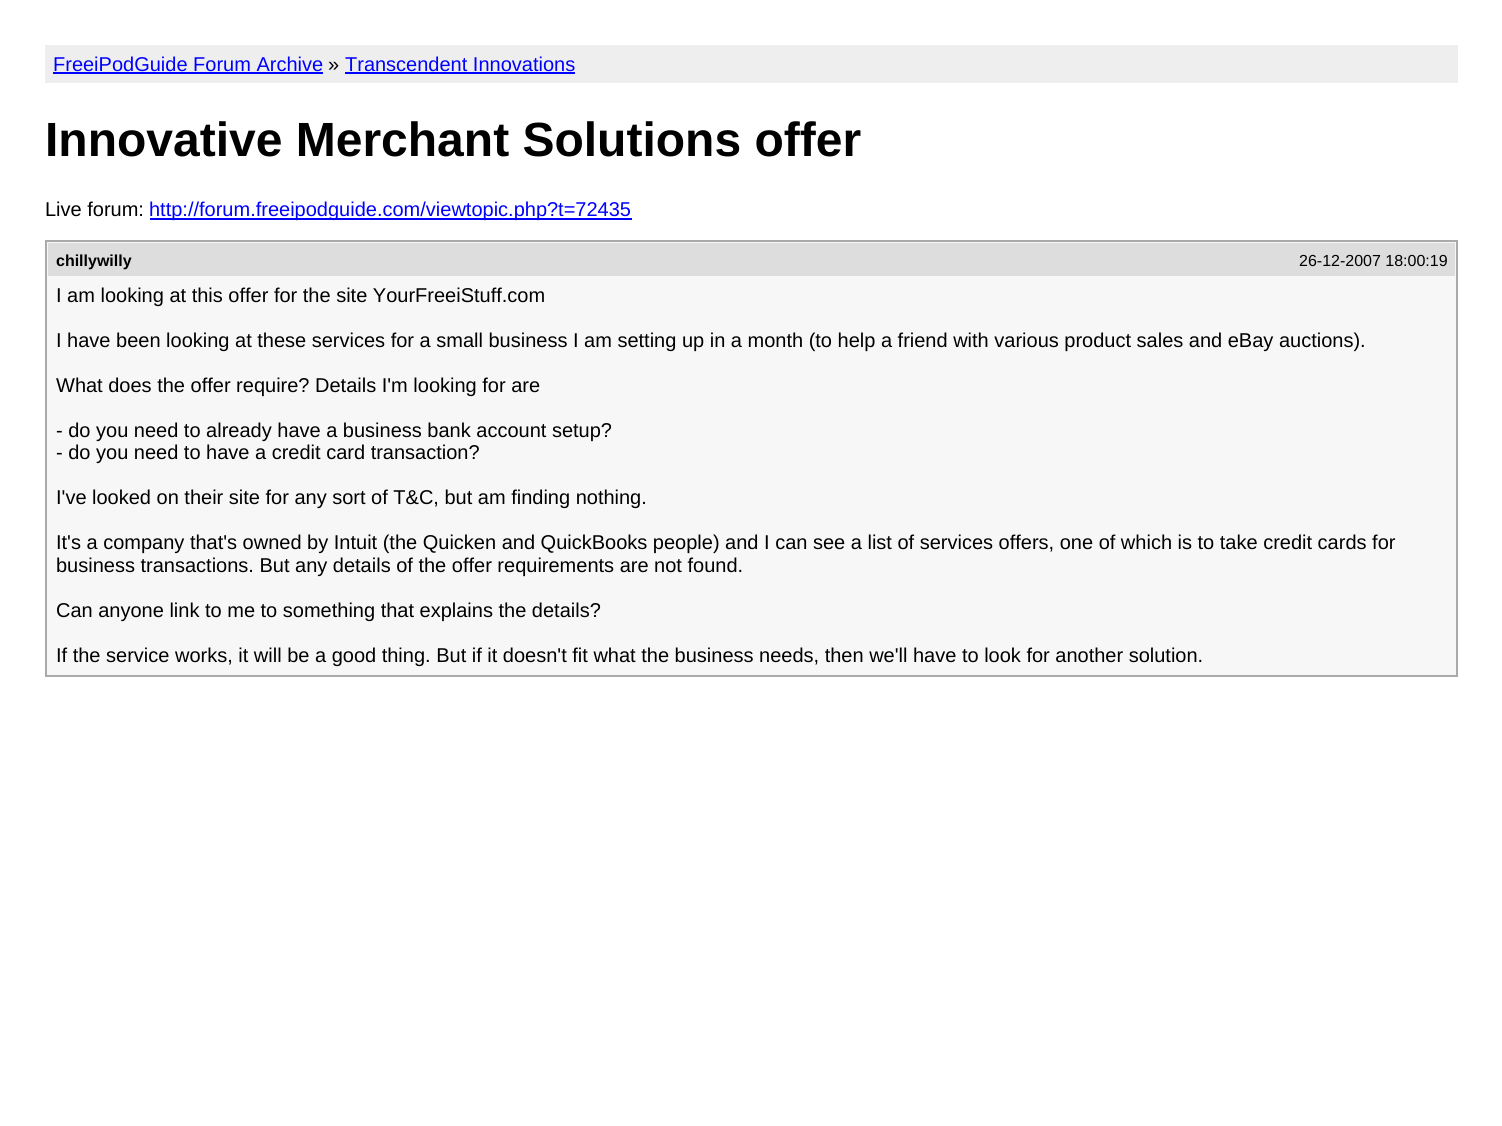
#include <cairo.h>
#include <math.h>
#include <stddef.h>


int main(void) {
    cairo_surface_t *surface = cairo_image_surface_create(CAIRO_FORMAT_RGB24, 1502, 1126);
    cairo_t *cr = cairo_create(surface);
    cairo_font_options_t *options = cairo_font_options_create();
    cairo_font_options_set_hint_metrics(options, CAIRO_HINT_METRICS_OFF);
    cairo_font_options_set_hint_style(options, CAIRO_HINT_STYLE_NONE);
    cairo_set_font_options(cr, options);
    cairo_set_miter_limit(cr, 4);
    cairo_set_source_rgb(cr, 1, 1, 1);
    cairo_paint(cr);
    cairo_set_source_rgb(cr, 0.933, 0.933, 0.933);
    cairo_rectangle(cr, 45, 45, 1413, 38);
    cairo_fill(cr);
    cairo_select_font_face(cr, "Liberation Sans", CAIRO_FONT_SLANT_NORMAL, CAIRO_FONT_WEIGHT_NORMAL);
    cairo_set_font_size(cr, 20);
    cairo_set_source_rgb(cr, 0, 0, 1);
    cairo_move_to(cr, 53, 71);
    cairo_show_text(cr, "FreeiPodGuide Forum Archive");
    cairo_rectangle(cr, 53, 72, 270, 2);
    cairo_fill(cr);
    cairo_set_source_rgb(cr, 0, 0, 0);
    cairo_move_to(cr, 328, 71);
    cairo_show_text(cr, "»");
    cairo_set_source_rgb(cr, 0, 0, 1);
    cairo_move_to(cr, 345, 71);
    cairo_show_text(cr, "Transcendent Innovations");
    cairo_rectangle(cr, 345, 72, 230, 2);
    cairo_fill(cr);
    cairo_select_font_face(cr, "Liberation Sans", CAIRO_FONT_SLANT_NORMAL, CAIRO_FONT_WEIGHT_BOLD);
    cairo_set_font_size(cr, 48);
    cairo_set_source_rgb(cr, 0, 0, 0);
    cairo_move_to(cr, 45, 156);
    cairo_show_text(cr, "Innovative Merchant Solutions offer");
    cairo_select_font_face(cr, "Liberation Sans", CAIRO_FONT_SLANT_NORMAL, CAIRO_FONT_WEIGHT_NORMAL);
    cairo_set_font_size(cr, 20);
    cairo_move_to(cr, 45, 216);
    cairo_show_text(cr, "Live forum:");
    cairo_set_source_rgb(cr, 0, 0, 1);
    cairo_rectangle(cr, 150, 218, 482, 2);
    cairo_fill(cr);
    cairo_move_to(cr, 149, 216);
    cairo_show_text(cr, "http://forum.freeipodguide.com/viewtopic.php?t=72435");
    cairo_set_source_rgb(cr, 0.965, 0.965, 0.965);
    cairo_rectangle(cr, 46, 241, 1411, 435);
    cairo_fill_preserve(cr);
    cairo_set_source_rgb(cr, 0.667, 0.667, 0.667);
    cairo_stroke(cr);
    cairo_set_source_rgb(cr, 0.867, 0.867, 0.867);
    cairo_rectangle(cr, 48, 243, 1407, 33);
    cairo_fill(cr);
    cairo_select_font_face(cr, "Liberation Sans", CAIRO_FONT_SLANT_NORMAL, CAIRO_FONT_WEIGHT_BOLD);
    cairo_set_font_size(cr, 16);
    cairo_set_source_rgb(cr, 0, 0, 0);
    cairo_move_to(cr, 56, 266);
    cairo_show_text(cr, "chillywilly");
    cairo_select_font_face(cr, "Liberation Sans", CAIRO_FONT_SLANT_NORMAL, CAIRO_FONT_WEIGHT_NORMAL);
    cairo_move_to(cr, 1299, 266);
    cairo_show_text(cr, "26-12-2007 18:00:19");
    cairo_set_font_size(cr, 20);
    cairo_move_to(cr, 56, 302);
    cairo_show_text(cr, "I am looking at this offer for the site YourFreeiStuff.com");
    cairo_move_to(cr, 56, 347);
    cairo_show_text(cr, "I have been looking at these services for a small business I am setting up in a month (to help a friend with various product sales and eBay auctions).");
    cairo_move_to(cr, 56, 392);
    cairo_show_text(cr, "What does the offer require? Details I'm looking for are");
    cairo_move_to(cr, 56, 437);
    cairo_show_text(cr, "- do you need to already have a business bank account setup?");
    cairo_move_to(cr, 56, 459);
    cairo_show_text(cr, "- do you need to have a credit card transaction?");
    cairo_move_to(cr, 56, 504);
    cairo_show_text(cr, "I've looked on their site for any sort of T&C, but am finding nothing.");
    cairo_move_to(cr, 56, 549);
    cairo_show_text(cr, "It's a company that's owned by Intuit (the Quicken and QuickBooks people) and I can see a list of services offers, one of which is to take credit cards for");
    cairo_move_to(cr, 56, 572);
    cairo_show_text(cr, "business transactions. But any details of the offer requirements are not found.");
    cairo_move_to(cr, 56, 617);
    cairo_show_text(cr, "Can anyone link to me to something that explains the details?");
    cairo_move_to(cr, 56, 662);
    cairo_show_text(cr, "If the service works, it will be a good thing. But if it doesn't fit what the business needs, then we'll have to look for another solution.");
    cairo_surface_write_to_png(surface, "page.png");
    cairo_font_options_destroy(options);
    cairo_destroy(cr);
    cairo_surface_destroy(surface);
    return 0;
}
